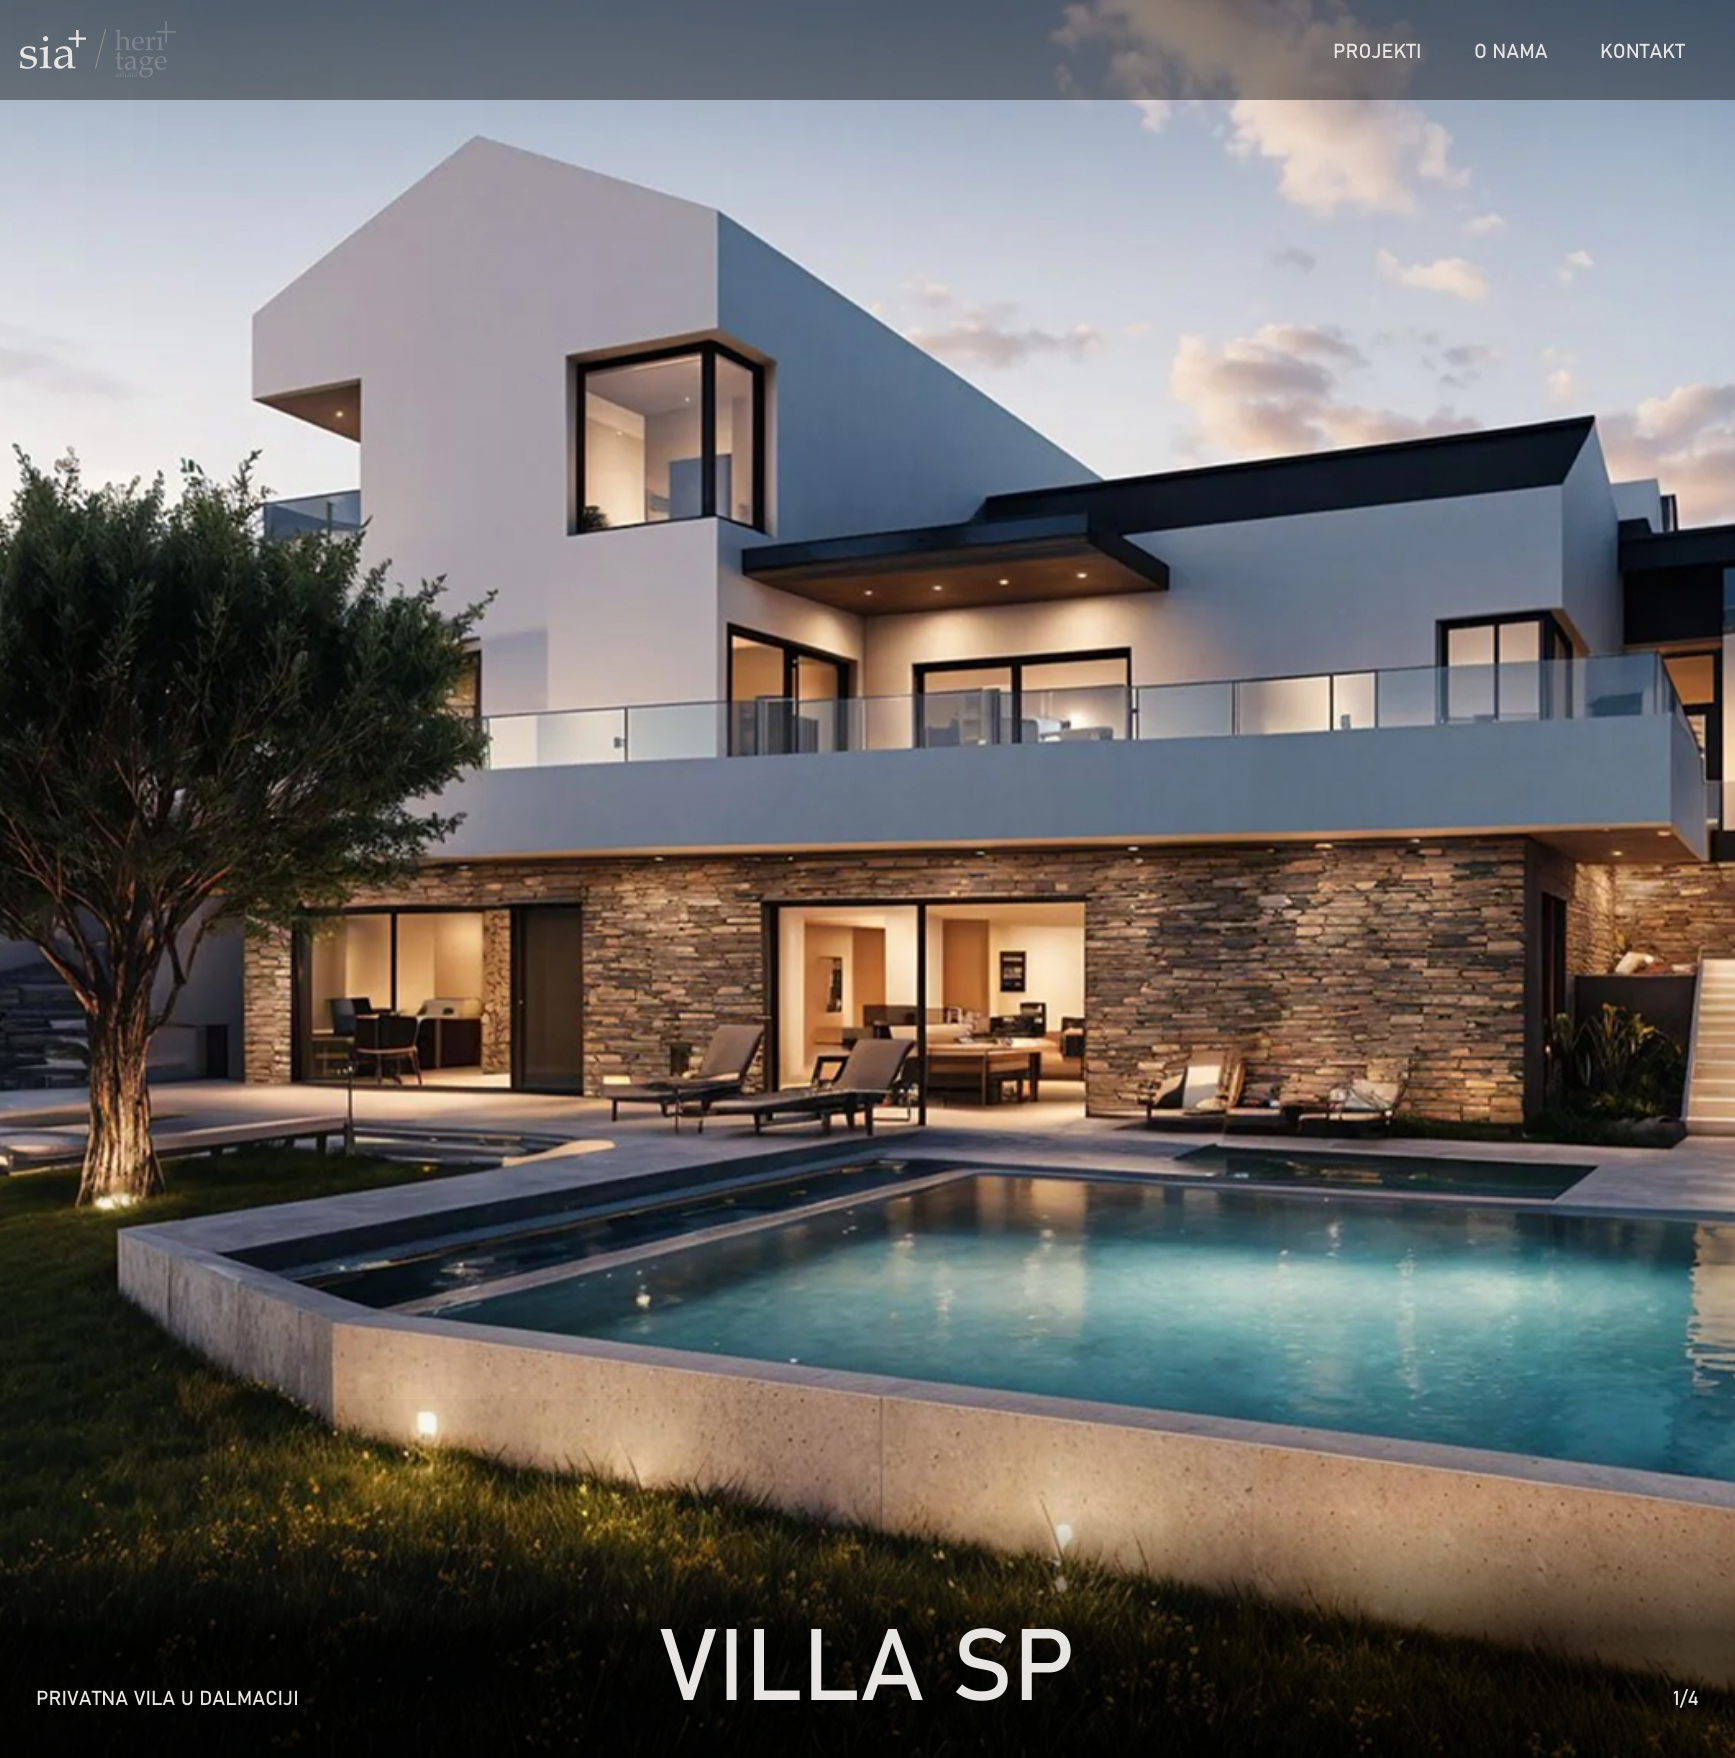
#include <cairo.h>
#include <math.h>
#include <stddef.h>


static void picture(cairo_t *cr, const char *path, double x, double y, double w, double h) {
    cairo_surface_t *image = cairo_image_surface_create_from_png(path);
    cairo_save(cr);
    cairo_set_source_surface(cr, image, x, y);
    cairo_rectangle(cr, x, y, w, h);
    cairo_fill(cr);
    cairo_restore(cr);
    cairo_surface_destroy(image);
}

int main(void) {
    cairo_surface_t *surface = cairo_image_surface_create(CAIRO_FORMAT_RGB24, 1735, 1758);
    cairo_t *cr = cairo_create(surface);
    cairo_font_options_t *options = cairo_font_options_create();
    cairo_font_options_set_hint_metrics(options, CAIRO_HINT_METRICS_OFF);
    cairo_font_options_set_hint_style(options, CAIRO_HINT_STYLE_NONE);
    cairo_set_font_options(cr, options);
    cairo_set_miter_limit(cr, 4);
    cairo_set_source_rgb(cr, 1, 1, 1);
    cairo_paint(cr);
    picture(cr, "img3.png", 0, 0, 1735, 1758);
    cairo_set_source_rgba(cr, 0, 0, 0, 0.4);
    cairo_rectangle(cr, 0, 0, 1735, 100);
    cairo_fill(cr);
    picture(cr, "img1.png", 20, 30, 66, 39);
    cairo_new_path(cr);
    cairo_move_to(cr, 105.5, 29.5);
    cairo_line_to(cr, 95.5, 68.5);
    cairo_set_source_rgb(cr, 0.561, 0.561, 0.561);
    cairo_set_line_width(cr, 1.1);
    cairo_stroke(cr);
    picture(cr, "img2.png", 115, 21, 61, 57);
    cairo_select_font_face(cr, "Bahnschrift", CAIRO_FONT_SLANT_NORMAL, CAIRO_FONT_WEIGHT_NORMAL);
    cairo_set_font_size(cr, 20);
    cairo_set_source_rgb(cr, 0.906, 0.898, 0.882);
    cairo_move_to(cr, 1333, 58);
    cairo_show_text(cr, "PROJEKTI");
    cairo_move_to(cr, 1474, 58);
    cairo_show_text(cr, "O NAMA");
    cairo_move_to(cr, 1600, 58);
    cairo_show_text(cr, "KONTAKT");
    cairo_move_to(cr, 36, 1705);
    cairo_show_text(cr, "PRIVATNA VILA U DALMACIJI");
    cairo_set_font_size(cr, 100);
    cairo_move_to(cr, 659, 1700);
    cairo_show_text(cr, "VILLA SP");
    cairo_set_font_size(cr, 20);
    cairo_move_to(cr, 1673, 1705);
    cairo_show_text(cr, "1/4");
    cairo_surface_write_to_png(surface, "page.png");
    cairo_font_options_destroy(options);
    cairo_destroy(cr);
    cairo_surface_destroy(surface);
    return 0;
}
